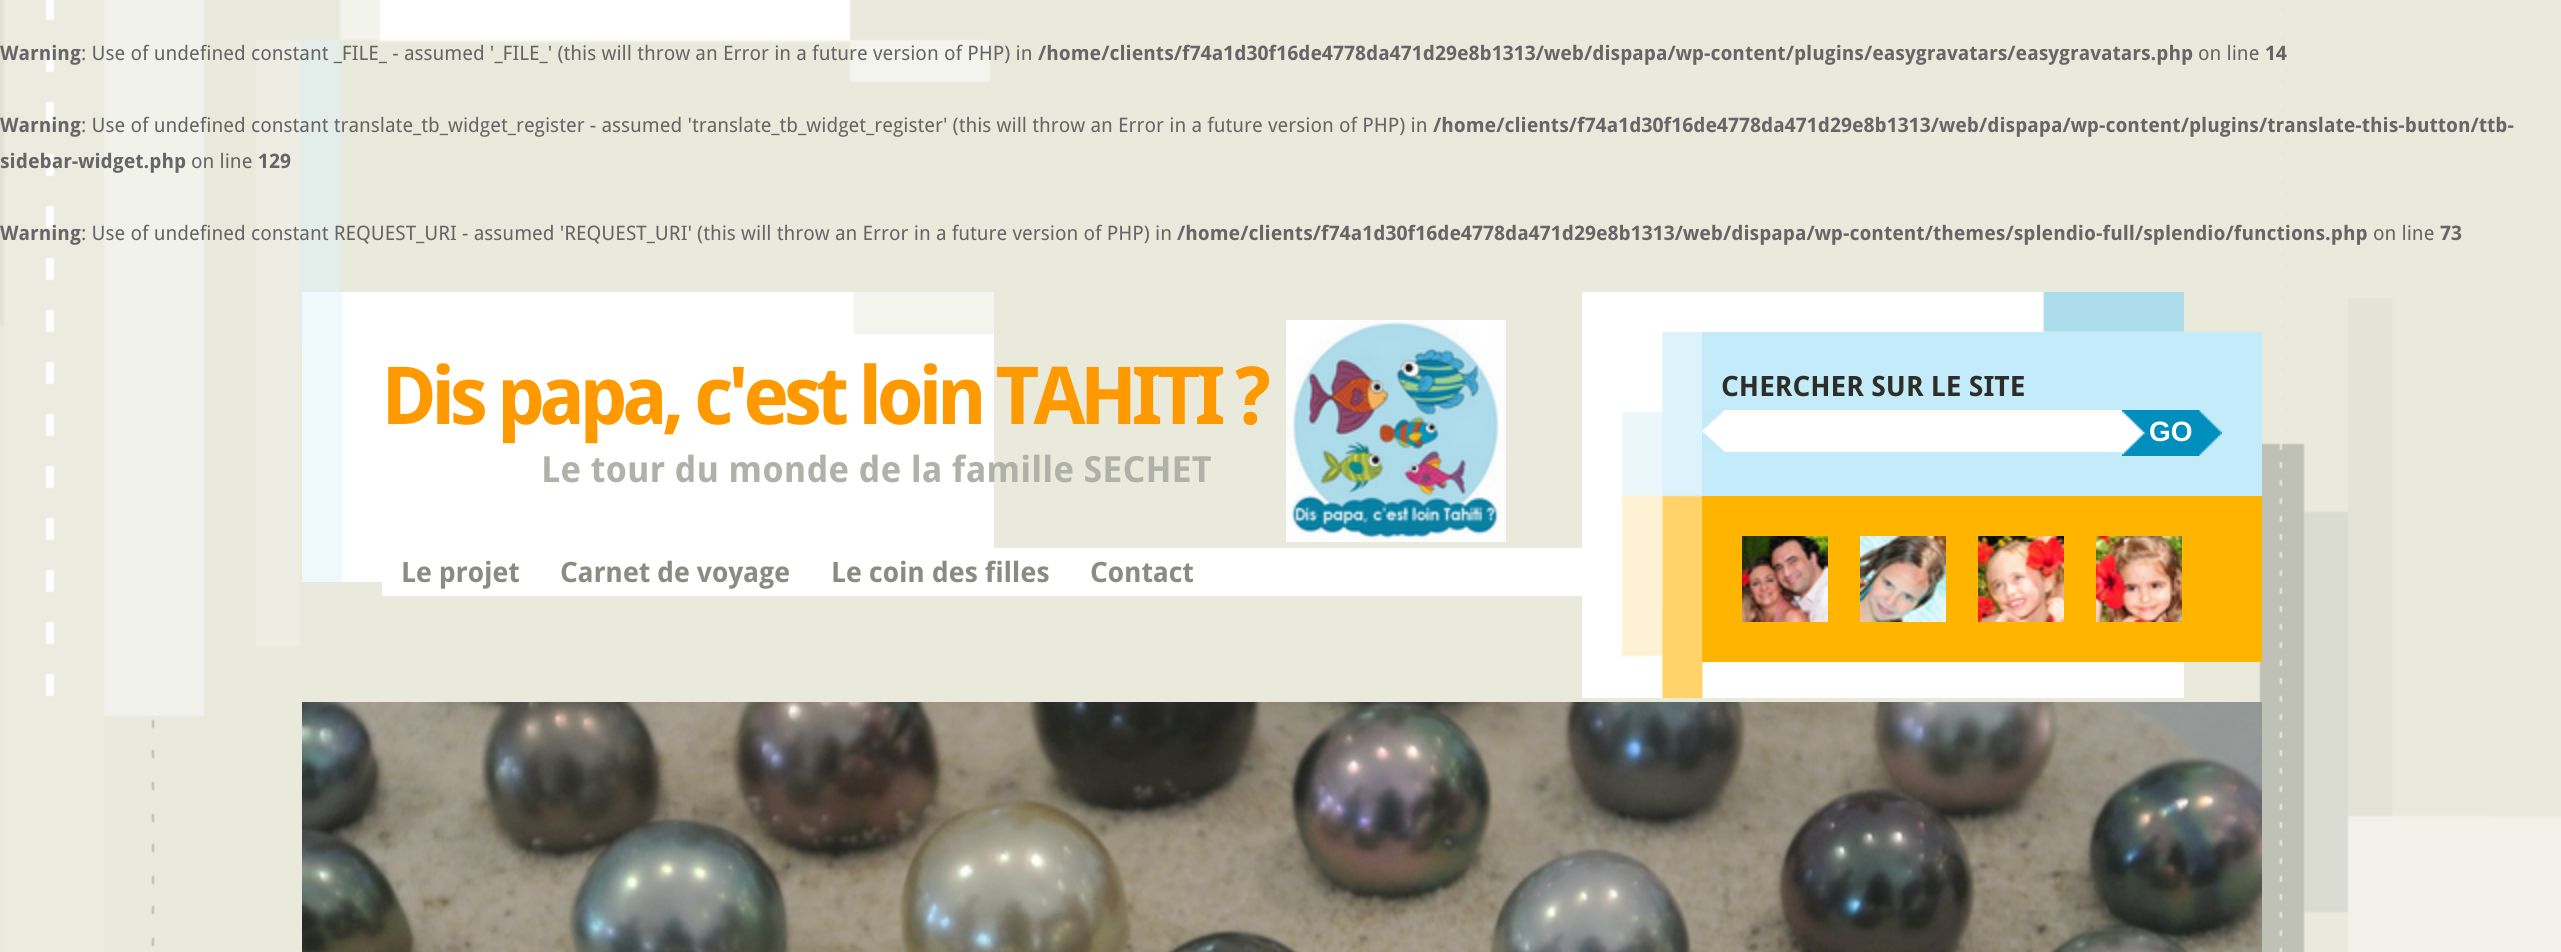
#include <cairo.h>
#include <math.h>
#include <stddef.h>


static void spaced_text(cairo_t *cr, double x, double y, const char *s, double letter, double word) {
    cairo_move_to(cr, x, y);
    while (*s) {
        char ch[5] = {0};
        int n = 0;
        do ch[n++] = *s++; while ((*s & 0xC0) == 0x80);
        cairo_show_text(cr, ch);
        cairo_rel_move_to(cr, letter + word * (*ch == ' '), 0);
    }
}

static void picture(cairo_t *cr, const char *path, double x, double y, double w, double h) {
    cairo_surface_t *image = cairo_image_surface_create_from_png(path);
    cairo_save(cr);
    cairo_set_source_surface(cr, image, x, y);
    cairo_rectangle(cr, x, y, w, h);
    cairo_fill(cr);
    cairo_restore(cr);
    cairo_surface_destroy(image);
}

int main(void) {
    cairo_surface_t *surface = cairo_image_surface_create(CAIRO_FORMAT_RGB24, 2561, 952);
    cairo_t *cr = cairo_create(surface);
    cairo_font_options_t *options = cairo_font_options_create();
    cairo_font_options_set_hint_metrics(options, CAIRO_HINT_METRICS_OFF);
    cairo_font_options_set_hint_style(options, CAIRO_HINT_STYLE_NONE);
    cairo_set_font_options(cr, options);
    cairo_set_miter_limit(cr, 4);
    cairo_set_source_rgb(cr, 1, 1, 1);
    cairo_paint(cr);
    picture(cr, "img1.png", 0, 0, 2561, 952);
    cairo_select_font_face(cr, "Droid Sans", CAIRO_FONT_SLANT_NORMAL, CAIRO_FONT_WEIGHT_BOLD);
    cairo_set_font_size(cr, 20);
    cairo_set_source_rgb(cr, 0.4, 0.4, 0.4);
    cairo_move_to(cr, 0, 60);
    cairo_show_text(cr, "Warning");
    cairo_select_font_face(cr, "Droid Sans", CAIRO_FONT_SLANT_NORMAL, CAIRO_FONT_WEIGHT_NORMAL);
    cairo_move_to(cr, 81, 60);
    cairo_show_text(cr, ": Use of undefined constant _FILE_ - assumed '_FILE_' (this will throw an Error in a future version of PHP) in");
    cairo_select_font_face(cr, "Droid Sans", CAIRO_FONT_SLANT_NORMAL, CAIRO_FONT_WEIGHT_BOLD);
    cairo_move_to(cr, 1038, 60);
    cairo_show_text(cr, "/home/clients/f74a1d30f16de4778da471d29e8b1313/web/dispapa/wp-content/plugins/easygravatars/easygravatars.php");
    cairo_select_font_face(cr, "Droid Sans", CAIRO_FONT_SLANT_NORMAL, CAIRO_FONT_WEIGHT_NORMAL);
    cairo_move_to(cr, 2198, 60);
    cairo_show_text(cr, "on line");
    cairo_select_font_face(cr, "Droid Sans", CAIRO_FONT_SLANT_NORMAL, CAIRO_FONT_WEIGHT_BOLD);
    cairo_move_to(cr, 2265, 60);
    cairo_show_text(cr, "14");
    cairo_move_to(cr, 0, 132);
    cairo_show_text(cr, "Warning");
    cairo_select_font_face(cr, "Droid Sans", CAIRO_FONT_SLANT_NORMAL, CAIRO_FONT_WEIGHT_NORMAL);
    cairo_move_to(cr, 81, 132);
    cairo_show_text(cr, ": Use of undefined constant translate_tb_widget_register - assumed 'translate_tb_widget_register' (this will throw an Error in a future version of PHP) in");
    cairo_select_font_face(cr, "Droid Sans", CAIRO_FONT_SLANT_NORMAL, CAIRO_FONT_WEIGHT_BOLD);
    cairo_move_to(cr, 1433, 132);
    cairo_show_text(cr, "/home/clients/f74a1d30f16de4778da471d29e8b1313/web/dispapa/wp-content/plugins/translate-this-button/ttb-");
    cairo_move_to(cr, 0, 168);
    cairo_show_text(cr, "sidebar-widget.php");
    cairo_select_font_face(cr, "Droid Sans", CAIRO_FONT_SLANT_NORMAL, CAIRO_FONT_WEIGHT_NORMAL);
    cairo_move_to(cr, 191, 168);
    cairo_show_text(cr, "on line");
    cairo_select_font_face(cr, "Droid Sans", CAIRO_FONT_SLANT_NORMAL, CAIRO_FONT_WEIGHT_BOLD);
    cairo_move_to(cr, 258, 168);
    cairo_show_text(cr, "129");
    cairo_move_to(cr, 0, 240);
    cairo_show_text(cr, "Warning");
    cairo_select_font_face(cr, "Droid Sans", CAIRO_FONT_SLANT_NORMAL, CAIRO_FONT_WEIGHT_NORMAL);
    cairo_move_to(cr, 81, 240);
    cairo_show_text(cr, ": Use of undefined constant REQUEST_URI - assumed 'REQUEST_URI' (this will throw an Error in a future version of PHP) in");
    cairo_select_font_face(cr, "Droid Sans", CAIRO_FONT_SLANT_NORMAL, CAIRO_FONT_WEIGHT_BOLD);
    cairo_move_to(cr, 1177, 240);
    cairo_show_text(cr, "/home/clients/f74a1d30f16de4778da471d29e8b1313/web/dispapa/wp-content/themes/splendio-full/splendio/functions.php");
    cairo_select_font_face(cr, "Droid Sans", CAIRO_FONT_SLANT_NORMAL, CAIRO_FONT_WEIGHT_NORMAL);
    cairo_move_to(cr, 2373, 240);
    cairo_show_text(cr, "on line");
    cairo_select_font_face(cr, "Droid Sans", CAIRO_FONT_SLANT_NORMAL, CAIRO_FONT_WEIGHT_BOLD);
    cairo_move_to(cr, 2440, 240);
    cairo_show_text(cr, "73");
    picture(cr, "img2.png", 302, 292, 692, 290);
    cairo_set_font_size(cr, 80);
    cairo_set_source_rgb(cr, 1, 0.6, 0);
    spaced_text(cr, 381, 424, "Dis papa, c'est loin TAHITI ?", -6, 0);
    picture(cr, "img3.png", 1286, 320, 220, 222);
    cairo_set_font_size(cr, 36);
    cairo_set_source_rgb(cr, 0.69, 0.694, 0.659);
    cairo_move_to(cr, 541, 482);
    cairo_show_text(cr, "Le tour du monde de la famille SECHET");
    cairo_set_source_rgb(cr, 1, 1, 1);
    cairo_rectangle(cr, 382, 548, 1200, 48);
    cairo_fill(cr);
    cairo_set_font_size(cr, 28);
    cairo_set_source_rgb(cr, 0.541, 0.545, 0.51);
    spaced_text(cr, 401, 582, "Le projet", -0.25, 0);
    spaced_text(cr, 560, 582, "Carnet de voyage", -0.25, 0);
    spaced_text(cr, 831, 582, "Le coin des filles", -0.25, 0);
    spaced_text(cr, 1090, 582, "Contact", -0.25, 0);
    picture(cr, "img4.png", 1582, 292, 602, 406);
    cairo_set_source_rgb(cr, 0.765, 0.918, 0.973);
    cairo_rectangle(cr, 1702, 332, 560, 164);
    cairo_fill(cr);
    cairo_set_source_rgb(cr, 0.18, 0.18, 0.161);
    cairo_move_to(cr, 1721, 396);
    cairo_show_text(cr, "CHERCHER SUR LE SITE");
    cairo_set_source_rgb(cr, 1, 1, 1);
    cairo_rectangle(cr, 1725, 410, 397, 42);
    cairo_fill(cr);
    picture(cr, "img5.png", 1702, 410, 23, 42);
    picture(cr, "img6.png", 2122, 410, 100, 46);
    cairo_select_font_face(cr, "Liberation Sans", CAIRO_FONT_SLANT_NORMAL, CAIRO_FONT_WEIGHT_BOLD);
    cairo_move_to(cr, 2149, 441);
    cairo_show_text(cr, "GO");
    cairo_set_source_rgb(cr, 1, 0.706, 0);
    cairo_rectangle(cr, 1702, 496, 560, 166);
    cairo_fill(cr);
    picture(cr, "img7.png", 1742, 536, 86, 86);
    picture(cr, "img8.png", 1860, 536, 86, 86);
    picture(cr, "img9.png", 1978, 536, 86, 86);
    picture(cr, "img10.png", 2096, 536, 86, 86);
    picture(cr, "img11.png", 302, 702, 1960, 250);
    cairo_surface_write_to_png(surface, "page.png");
    cairo_font_options_destroy(options);
    cairo_destroy(cr);
    cairo_surface_destroy(surface);
    return 0;
}
